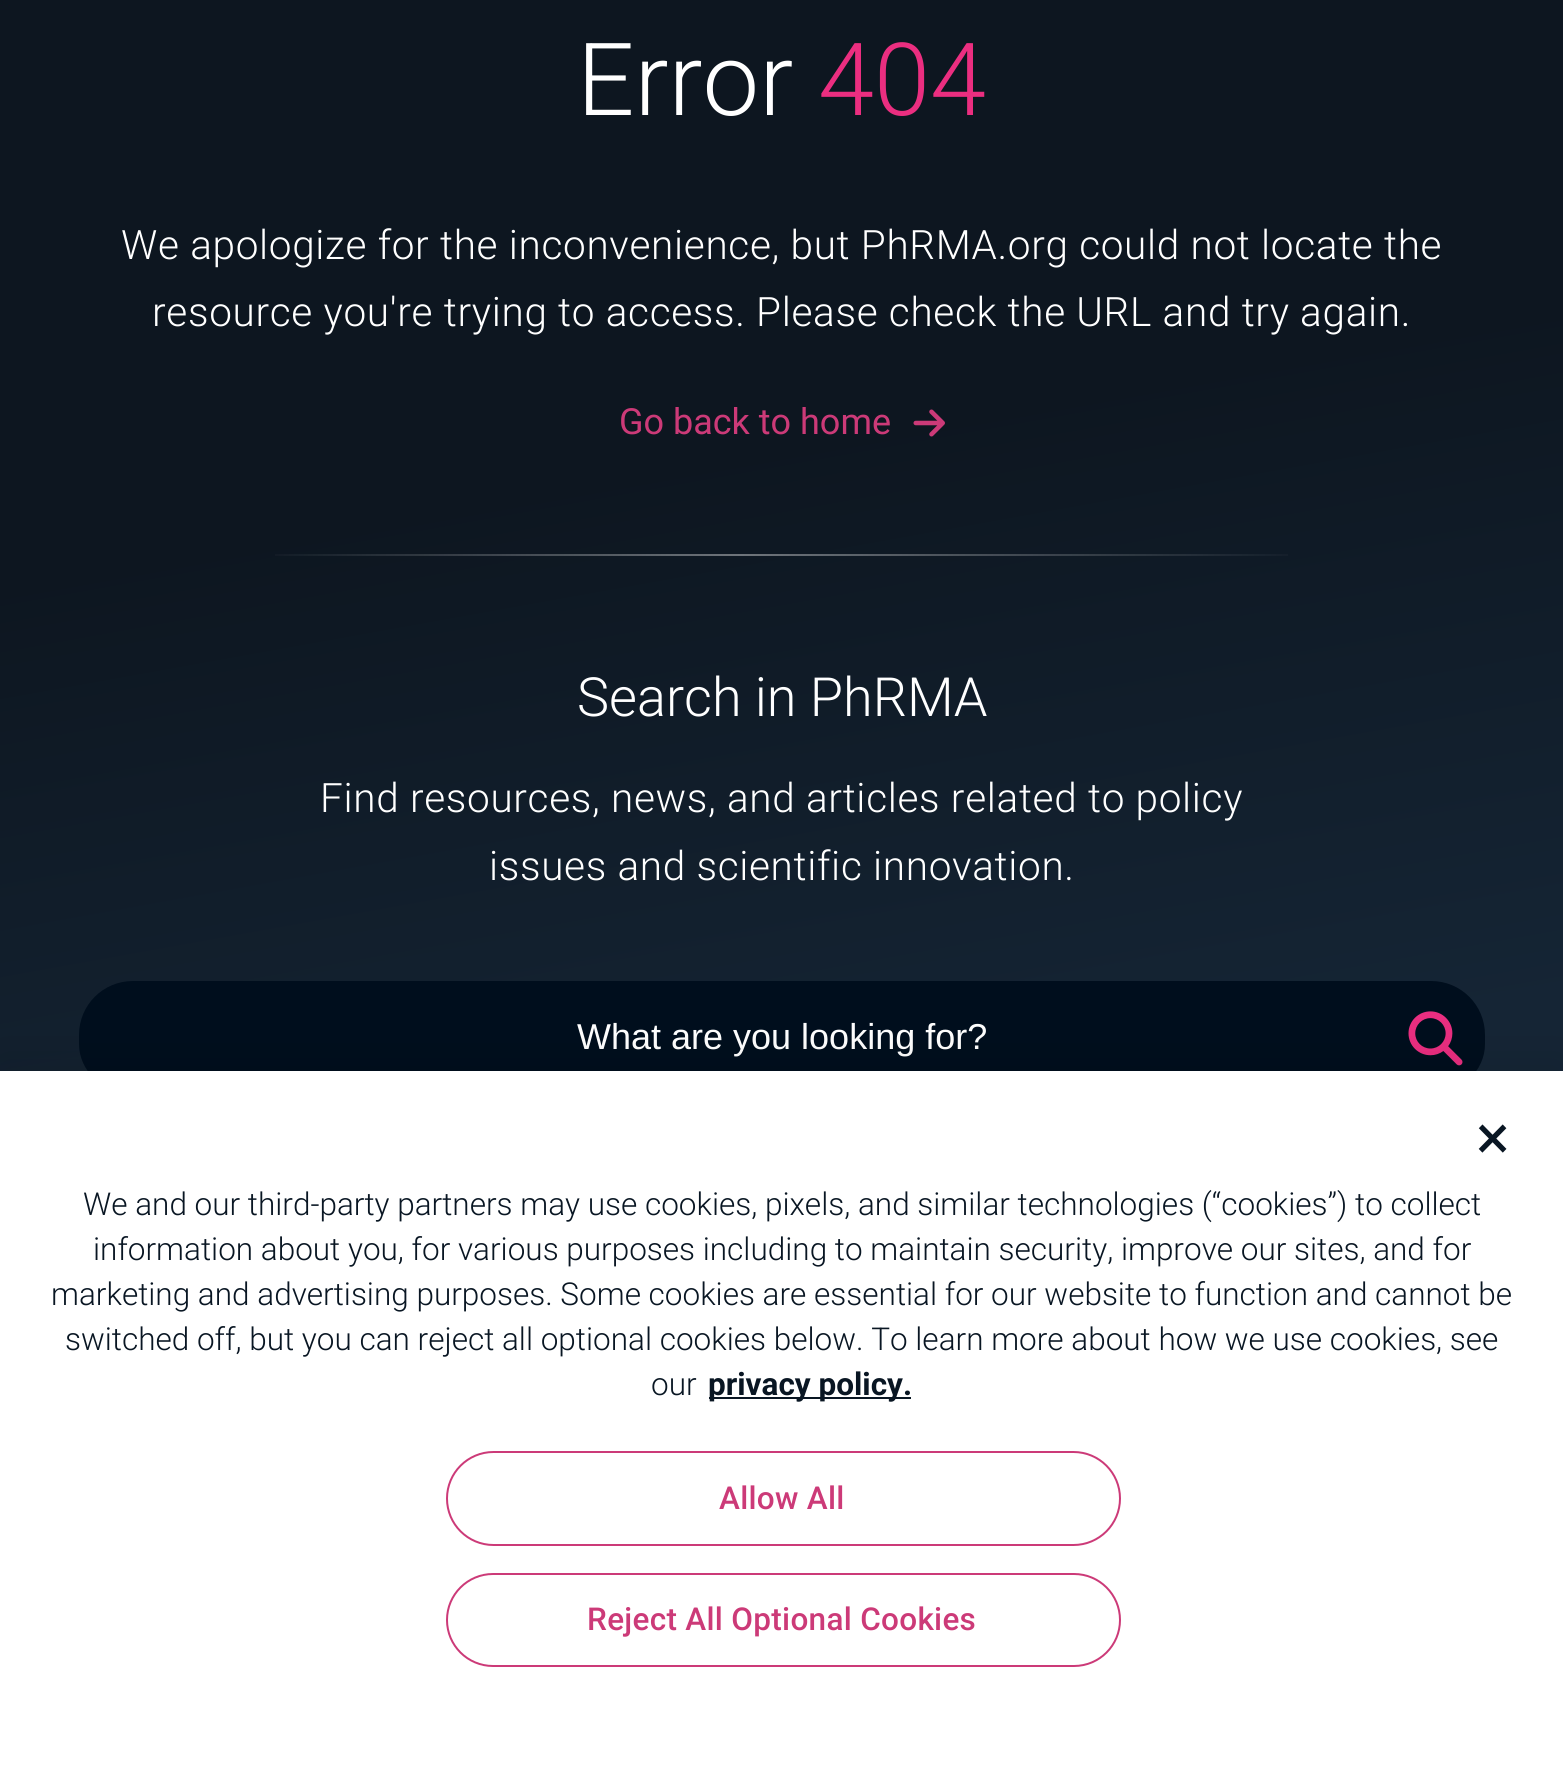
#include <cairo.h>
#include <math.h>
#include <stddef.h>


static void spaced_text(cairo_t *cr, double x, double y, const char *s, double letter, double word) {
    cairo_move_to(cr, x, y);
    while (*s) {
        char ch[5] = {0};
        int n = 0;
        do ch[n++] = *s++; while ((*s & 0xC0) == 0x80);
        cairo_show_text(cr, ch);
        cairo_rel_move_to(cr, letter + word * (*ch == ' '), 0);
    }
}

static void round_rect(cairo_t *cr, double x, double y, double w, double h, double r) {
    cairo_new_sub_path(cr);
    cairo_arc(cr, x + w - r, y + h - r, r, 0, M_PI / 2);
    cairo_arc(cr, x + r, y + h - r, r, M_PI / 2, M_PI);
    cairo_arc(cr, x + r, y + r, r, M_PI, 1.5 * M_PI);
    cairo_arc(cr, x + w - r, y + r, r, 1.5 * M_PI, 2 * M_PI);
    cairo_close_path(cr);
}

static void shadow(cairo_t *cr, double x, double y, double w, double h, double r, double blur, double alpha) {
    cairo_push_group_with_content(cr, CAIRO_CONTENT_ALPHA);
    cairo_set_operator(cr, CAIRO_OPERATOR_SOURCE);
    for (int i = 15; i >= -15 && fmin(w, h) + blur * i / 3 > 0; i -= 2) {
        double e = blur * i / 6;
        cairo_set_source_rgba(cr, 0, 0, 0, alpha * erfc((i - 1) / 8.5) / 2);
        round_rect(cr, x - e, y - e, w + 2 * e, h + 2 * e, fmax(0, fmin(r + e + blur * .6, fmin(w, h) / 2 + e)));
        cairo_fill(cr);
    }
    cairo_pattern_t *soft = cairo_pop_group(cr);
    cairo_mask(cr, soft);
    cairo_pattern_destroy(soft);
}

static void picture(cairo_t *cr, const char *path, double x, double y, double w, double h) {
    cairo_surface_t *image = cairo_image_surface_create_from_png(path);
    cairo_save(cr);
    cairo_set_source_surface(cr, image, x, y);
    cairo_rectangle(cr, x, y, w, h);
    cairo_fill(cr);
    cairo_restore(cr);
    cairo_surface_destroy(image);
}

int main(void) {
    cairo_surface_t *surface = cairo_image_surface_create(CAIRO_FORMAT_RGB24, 1563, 1787);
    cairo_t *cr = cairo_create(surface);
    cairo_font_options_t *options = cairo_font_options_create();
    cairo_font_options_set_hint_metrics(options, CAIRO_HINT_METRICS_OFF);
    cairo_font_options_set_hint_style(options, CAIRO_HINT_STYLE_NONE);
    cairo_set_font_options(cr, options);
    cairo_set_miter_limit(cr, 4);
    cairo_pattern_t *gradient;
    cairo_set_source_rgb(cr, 1, 1, 1);
    cairo_paint(cr);
    gradient = cairo_pattern_create_linear(946, 1524, 618, -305);
    cairo_pattern_add_color_stop_rgba(gradient, 0.22, 0.082, 0.145, 0.208, 1);
    cairo_pattern_add_color_stop_rgba(gradient, 0.59, 0.051, 0.086, 0.125, 1);
    cairo_set_source(cr, gradient);
    cairo_pattern_destroy(gradient);
    cairo_rectangle(cr, 0, 0, 1563, 1071);
    cairo_fill(cr);
    cairo_select_font_face(cr, "Roboto Light", CAIRO_FONT_SLANT_NORMAL, CAIRO_FONT_WEIGHT_NORMAL);
    cairo_set_font_size(cr, 101);
    cairo_set_source_rgb(cr, 1, 1, 1);
    cairo_move_to(cr, 577, 115);
    cairo_show_text(cr, "Error");
    cairo_set_source_rgb(cr, 0.918, 0.18, 0.502);
    cairo_move_to(cr, 818, 115);
    cairo_show_text(cr, "404");
    cairo_set_font_size(cr, 40.5);
    cairo_set_source_rgb(cr, 1, 1, 1);
    spaced_text(cr, 121, 259, "We apologize for the inconvenience, but PhRMA.org could not locate the", 0.67, 0);
    spaced_text(cr, 152, 326, "resource you're trying to access. Please check the URL and try again.", 0.67, 0);
    cairo_select_font_face(cr, "Roboto", CAIRO_FONT_SLANT_NORMAL, CAIRO_FONT_WEIGHT_NORMAL);
    cairo_set_font_size(cr, 36);
    cairo_set_source_rgb(cr, 0.8, 0.227, 0.471);
    cairo_move_to(cr, 619, 434);
    cairo_show_text(cr, "Go back to home");
    picture(cr, "img1.png", 913, 409, 32, 28);
    gradient = cairo_pattern_create_linear(248, 555, 1319, 555);
    cairo_pattern_add_color_stop_rgba(gradient, 0, 1, 1, 1, 0);
    cairo_pattern_add_color_stop_rgba(gradient, 0.46, 1, 1, 1, 0.4);
    cairo_pattern_add_color_stop_rgba(gradient, 1, 1, 1, 1, 0);
    cairo_set_source(cr, gradient);
    cairo_pattern_destroy(gradient);
    cairo_rectangle(cr, 275, 554, 1013, 2);
    cairo_fill(cr);
    cairo_select_font_face(cr, "Roboto Light", CAIRO_FONT_SLANT_NORMAL, CAIRO_FONT_WEIGHT_NORMAL);
    cairo_set_font_size(cr, 54);
    cairo_set_source_rgb(cr, 1, 1, 1);
    cairo_move_to(cr, 577, 716);
    cairo_show_text(cr, "Search in PhRMA");
    cairo_set_font_size(cr, 40.5);
    spaced_text(cr, 320, 812, "Find resources, news, and articles related to policy", 0.67, 0);
    spaced_text(cr, 489, 880, "issues and scientific innovation.", 0.67, 0);
    cairo_set_source_rgb(cr, 0, 0.055, 0.114);
    cairo_new_path(cr);
    cairo_move_to(cr, 133, 981);
    cairo_line_to(cr, 1431, 981);
    cairo_curve_to(cr, 1461, 981, 1485, 1005, 1485, 1035);
    cairo_line_to(cr, 1485, 1044);
    cairo_curve_to(cr, 1485, 1071, 1461, 1094, 1431, 1094);
    cairo_line_to(cr, 133, 1094);
    cairo_curve_to(cr, 103, 1094, 79, 1071, 79, 1044);
    cairo_line_to(cr, 79, 1035);
    cairo_curve_to(cr, 79, 1005, 103, 981, 133, 981);
    cairo_close_path(cr);
    cairo_fill(cr);
    cairo_select_font_face(cr, "Liberation Sans", CAIRO_FONT_SLANT_NORMAL, CAIRO_FONT_WEIGHT_NORMAL);
    cairo_set_font_size(cr, 36);
    cairo_set_source_rgb(cr, 1, 1, 1);
    cairo_move_to(cr, 577, 1049);
    cairo_show_text(cr, "What are you looking for?");
    picture(cr, "img2.png", 1408, 1011, 55, 55);
    cairo_set_source_rgb(cr, 0, 0, 0);
    shadow(cr, 0, 1062, 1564, 718, 0, 22.5, 0.1);
    cairo_set_source_rgb(cr, 1, 1, 1);
    cairo_rectangle(cr, 0, 1071, 1563, 716);
    cairo_fill(cr);
    cairo_select_font_face(cr, "Roboto", CAIRO_FONT_SLANT_NORMAL, CAIRO_FONT_WEIGHT_NORMAL);
    cairo_set_font_size(cr, 63);
    cairo_set_source_rgb(cr, 0.039, 0.086, 0.137);
    spaced_text(cr, 1476, 1159, "×", 0.3, 0);
    cairo_select_font_face(cr, "Roboto Light", CAIRO_FONT_SLANT_NORMAL, CAIRO_FONT_WEIGHT_NORMAL);
    cairo_set_font_size(cr, 31.5);
    cairo_move_to(cr, 83, 1215);
    cairo_show_text(cr, "We and our third-party partners may use cookies, pixels, and similar technologies (“cookies”) to collect");
    cairo_move_to(cr, 93, 1260);
    cairo_show_text(cr, "information about you, for various purposes including to maintain security, improve our sites, and for");
    cairo_move_to(cr, 51, 1305);
    cairo_show_text(cr, "marketing and advertising purposes. Some cookies are essential for our website to function and cannot be");
    cairo_move_to(cr, 65, 1350);
    cairo_show_text(cr, "switched off, but you can reject all optional cookies below. To learn more about how we use cookies, see");
    cairo_move_to(cr, 651, 1395);
    cairo_show_text(cr, "our");
    cairo_rectangle(cr, 709, 1397, 202, 2);
    cairo_fill(cr);
    cairo_select_font_face(cr, "Roboto", CAIRO_FONT_SLANT_NORMAL, CAIRO_FONT_WEIGHT_BOLD);
    cairo_move_to(cr, 708, 1395);
    cairo_show_text(cr, "privacy policy.");
    round_rect(cr, 447, 1452, 673, 93, 46.5);
    cairo_set_source_rgb(cr, 0.8, 0.227, 0.471);
    cairo_stroke(cr);
    cairo_select_font_face(cr, "Roboto Medium", CAIRO_FONT_SLANT_NORMAL, CAIRO_FONT_WEIGHT_NORMAL);
    spaced_text(cr, 719, 1509, "Allow All", 0.3, 0);
    round_rect(cr, 447, 1574, 673, 92, 46);
    cairo_stroke(cr);
    spaced_text(cr, 587, 1630, "Reject All Optional Cookies", 0.3, 0);
    cairo_surface_write_to_png(surface, "page.png");
    cairo_font_options_destroy(options);
    cairo_destroy(cr);
    cairo_surface_destroy(surface);
    return 0;
}
